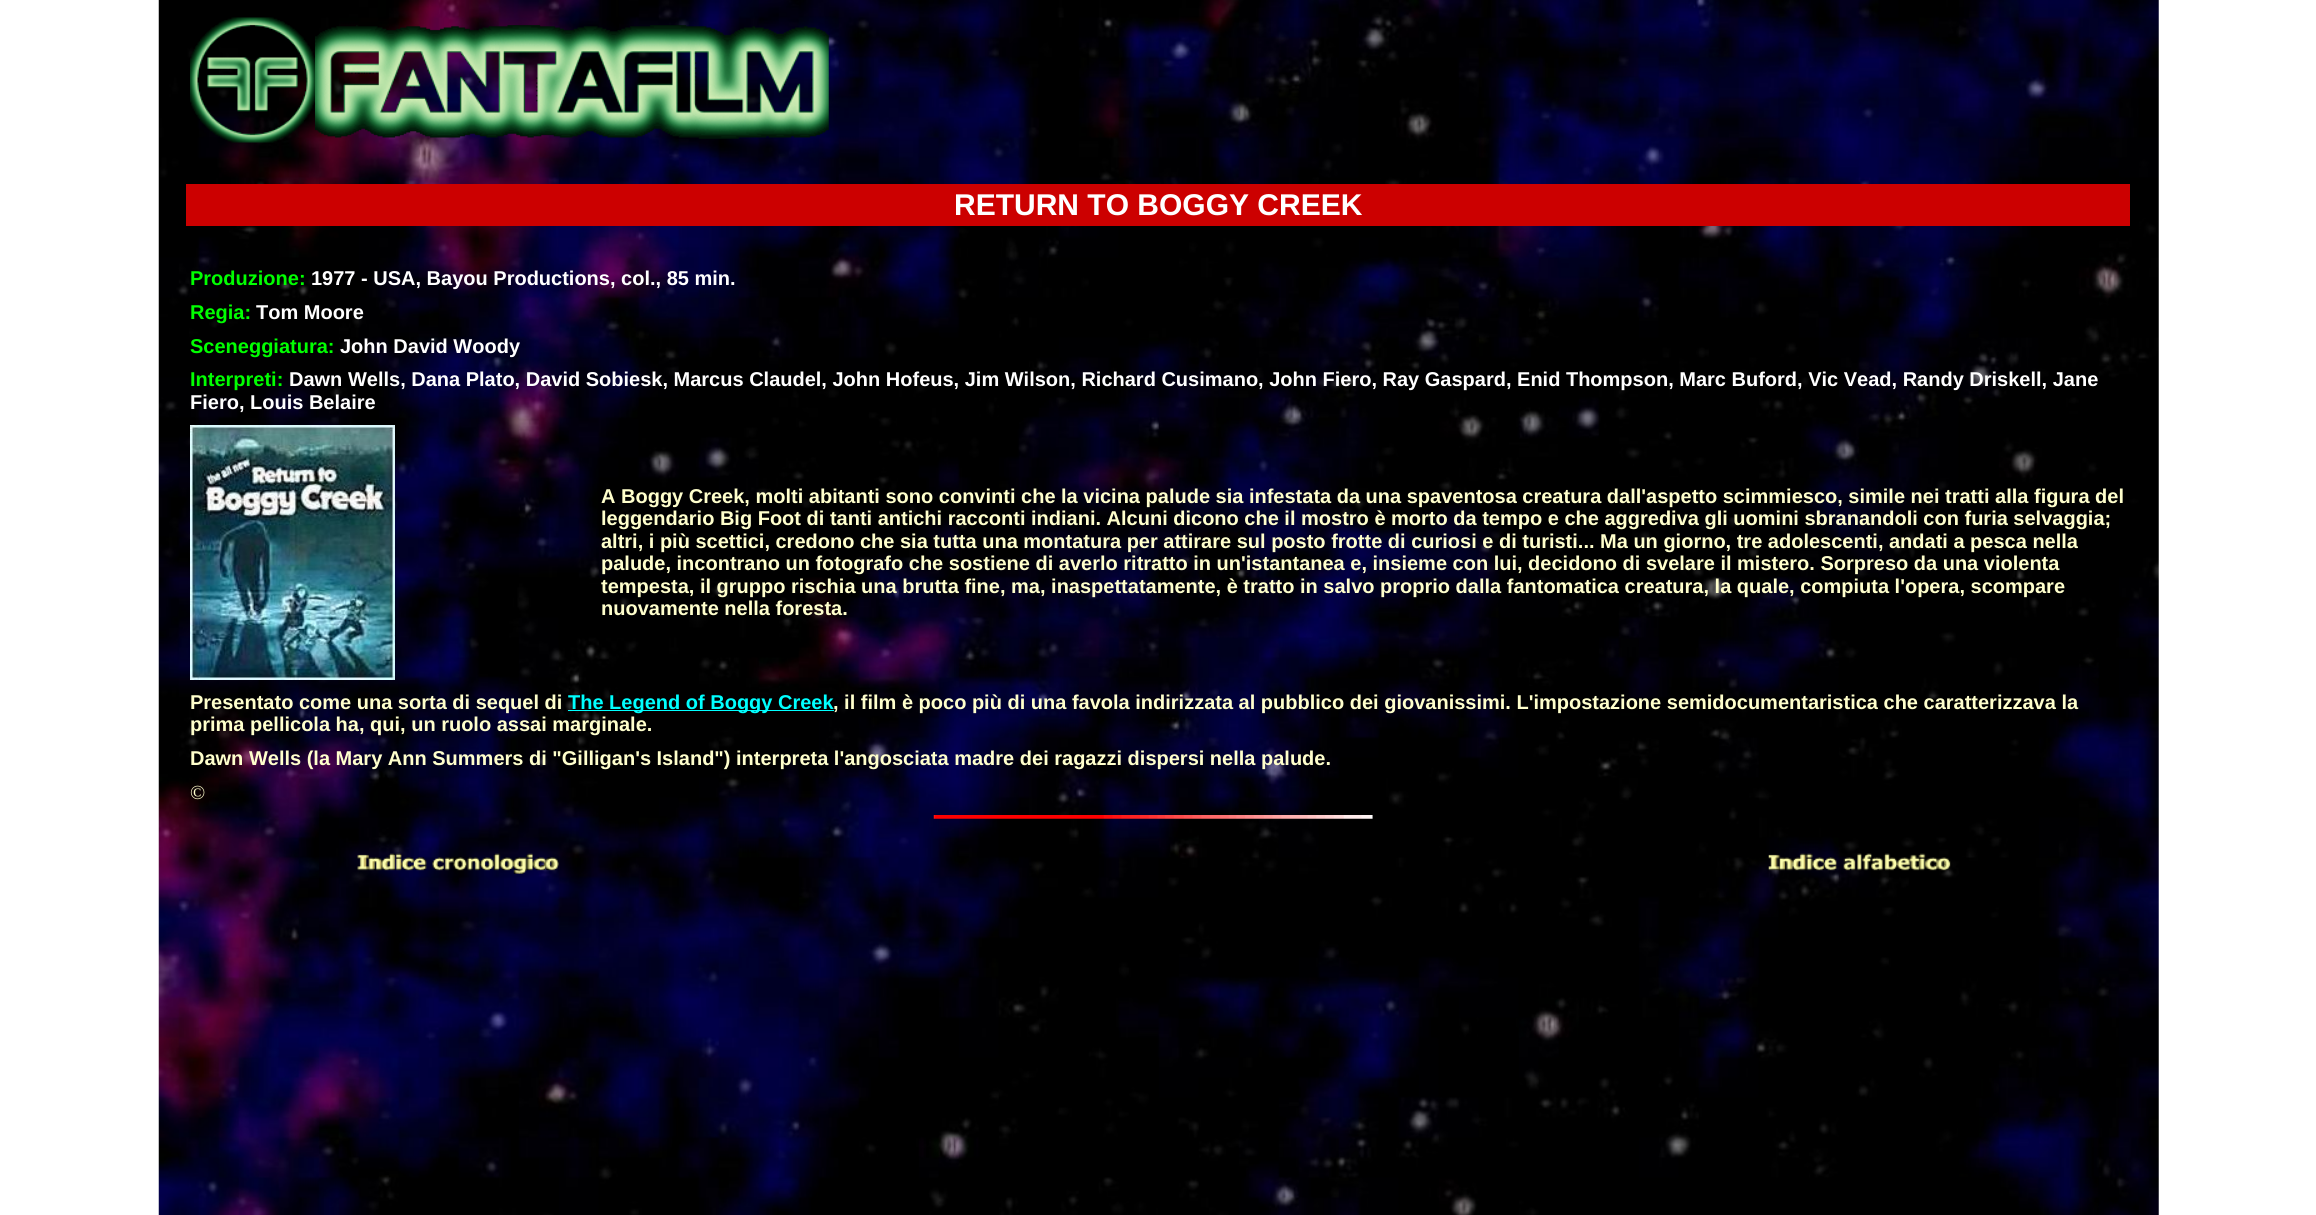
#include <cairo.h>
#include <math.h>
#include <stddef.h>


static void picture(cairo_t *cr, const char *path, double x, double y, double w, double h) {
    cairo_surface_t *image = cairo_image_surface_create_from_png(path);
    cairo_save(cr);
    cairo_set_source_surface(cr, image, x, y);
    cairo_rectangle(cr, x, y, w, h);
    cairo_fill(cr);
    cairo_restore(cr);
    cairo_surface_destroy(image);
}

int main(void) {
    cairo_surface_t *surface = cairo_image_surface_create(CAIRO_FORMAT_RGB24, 2316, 1215);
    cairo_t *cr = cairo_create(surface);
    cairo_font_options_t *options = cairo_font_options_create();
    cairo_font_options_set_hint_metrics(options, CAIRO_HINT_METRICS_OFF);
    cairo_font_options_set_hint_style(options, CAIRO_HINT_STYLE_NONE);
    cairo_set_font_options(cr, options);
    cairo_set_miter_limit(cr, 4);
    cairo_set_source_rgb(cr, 1, 1, 1);
    cairo_paint(cr);
    picture(cr, "img1.png", 158, 0, 2001, 1215);
    picture(cr, "img2.png", 190, 17, 125, 126);
    picture(cr, "img3.png", 315, 25, 514, 114);
    cairo_set_source_rgb(cr, 0.8, 0, 0);
    cairo_rectangle(cr, 186, 184, 1944, 42);
    cairo_fill(cr);
    cairo_select_font_face(cr, "Liberation Sans", CAIRO_FONT_SLANT_NORMAL, CAIRO_FONT_WEIGHT_BOLD);
    cairo_set_font_size(cr, 30);
    cairo_set_source_rgb(cr, 1, 1, 1);
    cairo_move_to(cr, 954, 215);
    cairo_show_text(cr, "RETURN TO BOGGY CREEK");
    cairo_set_font_size(cr, 20);
    cairo_set_source_rgb(cr, 0, 1, 0);
    cairo_move_to(cr, 190, 285);
    cairo_show_text(cr, "Produzione:");
    cairo_set_source_rgb(cr, 1, 1, 1);
    cairo_move_to(cr, 311, 285);
    cairo_show_text(cr, "1977 - USA, Bayou Productions, col., 85 min.");
    cairo_set_source_rgb(cr, 0, 1, 0);
    cairo_move_to(cr, 190, 319);
    cairo_show_text(cr, "Regia:");
    cairo_set_source_rgb(cr, 1, 1, 1);
    cairo_move_to(cr, 256, 319);
    cairo_show_text(cr, "Tom Moore");
    cairo_set_source_rgb(cr, 0, 1, 0);
    cairo_move_to(cr, 190, 353);
    cairo_show_text(cr, "Sceneggiatura:");
    cairo_set_source_rgb(cr, 1, 1, 1);
    cairo_move_to(cr, 340, 353);
    cairo_show_text(cr, "John David Woody");
    cairo_set_source_rgb(cr, 0, 1, 0);
    cairo_move_to(cr, 190, 386);
    cairo_show_text(cr, "Interpreti:");
    cairo_set_source_rgb(cr, 1, 1, 1);
    cairo_move_to(cr, 289, 386);
    cairo_show_text(cr, "Dawn Wells, Dana Plato, David Sobiesk, Marcus Claudel, John Hofeus, Jim Wilson, Richard Cusimano, John Fiero, Ray Gaspard, Enid Thompson, Marc Buford, Vic Vead, Randy Driskell, Jane");
    cairo_move_to(cr, 190, 409);
    cairo_show_text(cr, "Fiero, Louis Belaire");
    picture(cr, "img4.png", 190, 425, 205, 255);
    cairo_set_source_rgb(cr, 1, 1, 0.8);
    cairo_move_to(cr, 601, 503);
    cairo_show_text(cr, "A Boggy Creek, molti abitanti sono convinti che la vicina palude sia infestata da una spaventosa creatura dall'aspetto scimmiesco, simile nei tratti alla figura del");
    cairo_move_to(cr, 601, 525);
    cairo_show_text(cr, "leggendario Big Foot di tanti antichi racconti indiani. Alcuni dicono che il mostro è morto da tempo e che aggrediva gli uomini sbranandoli con furia selvaggia;");
    cairo_move_to(cr, 601, 548);
    cairo_show_text(cr, "altri, i più scettici, credono che sia tutta una montatura per attirare sul posto frotte di curiosi e di turisti... Ma un giorno, tre adolescenti, andati a pesca nella");
    cairo_move_to(cr, 601, 570);
    cairo_show_text(cr, "palude, incontrano un fotografo che sostiene di averlo ritratto in un'istantanea e, insieme con lui, decidono di svelare il mistero. Sorpreso da una violenta");
    cairo_move_to(cr, 601, 593);
    cairo_show_text(cr, "tempesta, il gruppo rischia una brutta fine, ma, inaspettatamente, è tratto in salvo proprio dalla fantomatica creatura, la quale, compiuta l'opera, scompare");
    cairo_move_to(cr, 601, 615);
    cairo_show_text(cr, "nuovamente nella foresta.");
    cairo_move_to(cr, 190, 709);
    cairo_show_text(cr, "Presentato come una sorta di sequel di");
    cairo_set_source_rgb(cr, 0, 1, 1);
    cairo_rectangle(cr, 568, 710, 266, 1);
    cairo_fill(cr);
    cairo_move_to(cr, 568, 709);
    cairo_show_text(cr, "The Legend of Boggy Creek");
    cairo_set_source_rgb(cr, 1, 1, 0.8);
    cairo_move_to(cr, 833, 709);
    cairo_show_text(cr, ", il film è poco più di una favola indirizzata al pubblico dei giovanissimi. L'impostazione semidocumentaristica che caratterizzava la");
    cairo_move_to(cr, 190, 731);
    cairo_show_text(cr, "prima pellicola ha, qui, un ruolo assai marginale.");
    cairo_move_to(cr, 190, 765);
    cairo_show_text(cr, "Dawn Wells (la Mary Ann Summers di \"Gilligan's Island\") interpreta l'angosciata madre dei ragazzi dispersi nella palude.");
    cairo_select_font_face(cr, "Liberation Serif", CAIRO_FONT_SLANT_NORMAL, CAIRO_FONT_WEIGHT_NORMAL);
    cairo_move_to(cr, 190, 799);
    cairo_show_text(cr, "©");
    picture(cr, "img5.png", 933, 815, 440, 4);
    picture(cr, "img6.png", 357, 853, 202, 21);
    picture(cr, "img7.png", 1768, 853, 183, 18);
    cairo_surface_write_to_png(surface, "page.png");
    cairo_font_options_destroy(options);
    cairo_destroy(cr);
    cairo_surface_destroy(surface);
    return 0;
}
